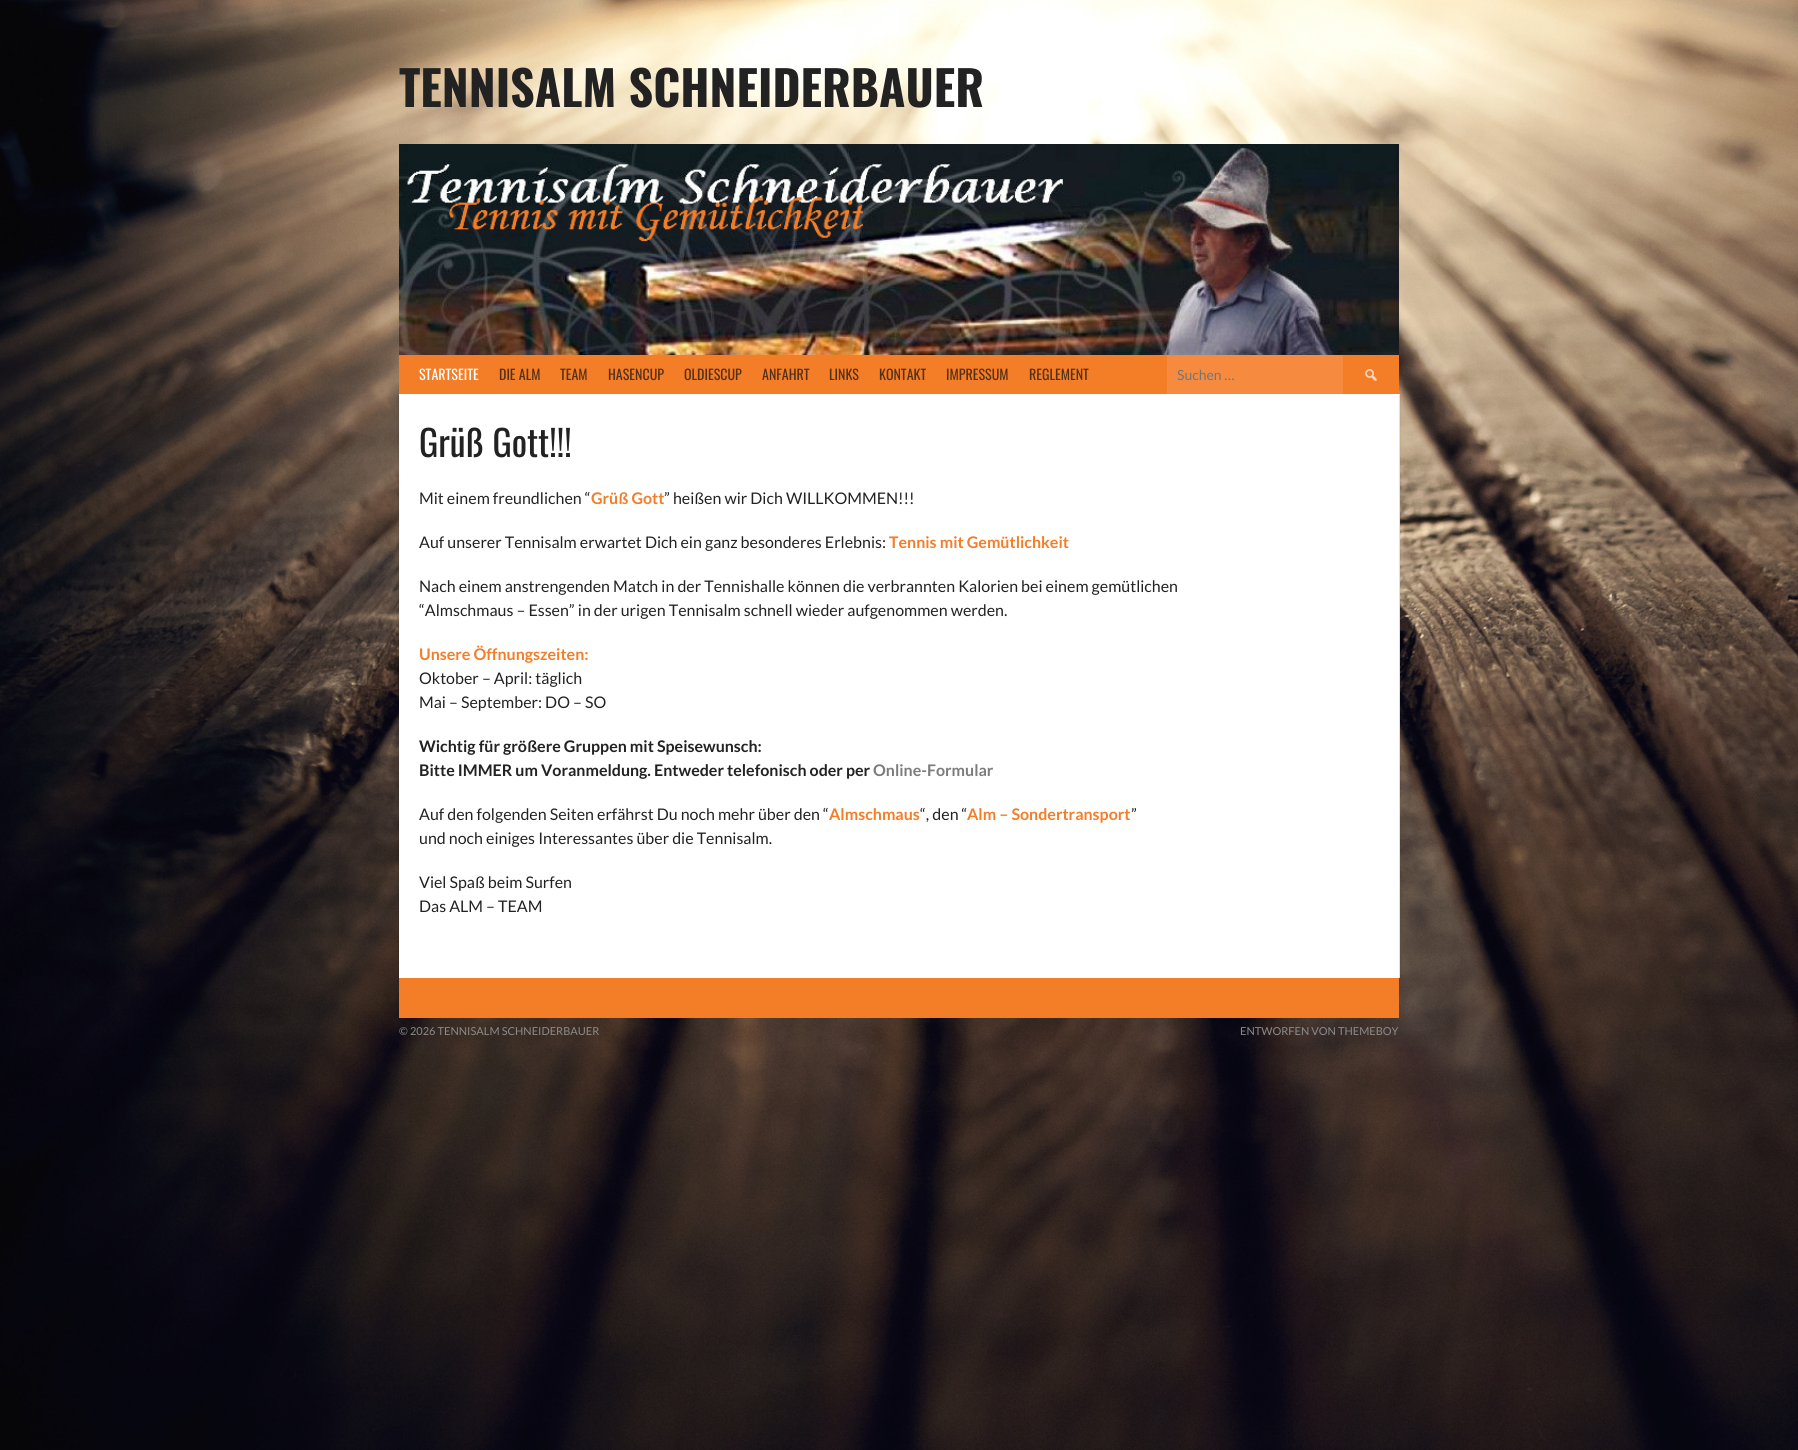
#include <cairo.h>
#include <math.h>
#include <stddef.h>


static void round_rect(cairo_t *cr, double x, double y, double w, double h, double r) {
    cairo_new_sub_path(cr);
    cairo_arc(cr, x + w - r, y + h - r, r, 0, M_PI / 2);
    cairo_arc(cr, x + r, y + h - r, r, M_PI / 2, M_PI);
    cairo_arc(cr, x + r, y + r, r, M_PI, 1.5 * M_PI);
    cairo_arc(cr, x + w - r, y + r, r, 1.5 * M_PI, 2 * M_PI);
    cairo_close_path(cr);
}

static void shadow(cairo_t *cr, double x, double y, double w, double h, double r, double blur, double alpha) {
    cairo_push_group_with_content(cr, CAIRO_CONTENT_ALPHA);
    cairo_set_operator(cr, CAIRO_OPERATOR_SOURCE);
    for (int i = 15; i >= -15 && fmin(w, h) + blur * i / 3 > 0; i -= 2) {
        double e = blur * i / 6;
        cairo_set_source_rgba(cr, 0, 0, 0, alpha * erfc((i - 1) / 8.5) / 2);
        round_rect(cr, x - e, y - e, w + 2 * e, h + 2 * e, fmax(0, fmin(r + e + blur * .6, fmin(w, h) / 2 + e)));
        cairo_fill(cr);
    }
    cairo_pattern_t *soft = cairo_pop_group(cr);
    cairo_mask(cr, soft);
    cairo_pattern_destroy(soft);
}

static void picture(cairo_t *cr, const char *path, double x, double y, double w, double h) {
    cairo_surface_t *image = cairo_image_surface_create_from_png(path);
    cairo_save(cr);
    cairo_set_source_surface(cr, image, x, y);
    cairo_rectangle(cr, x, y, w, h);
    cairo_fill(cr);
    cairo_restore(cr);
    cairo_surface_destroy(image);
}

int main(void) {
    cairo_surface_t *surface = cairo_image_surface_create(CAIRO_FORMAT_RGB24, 1798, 1450);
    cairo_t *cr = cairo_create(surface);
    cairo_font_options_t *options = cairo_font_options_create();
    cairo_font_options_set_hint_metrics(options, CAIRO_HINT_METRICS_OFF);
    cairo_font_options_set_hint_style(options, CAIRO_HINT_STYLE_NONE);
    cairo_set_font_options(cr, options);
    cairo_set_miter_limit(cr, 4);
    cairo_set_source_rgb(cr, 1, 1, 1);
    cairo_paint(cr);
    picture(cr, "img1.png", 0, 0, 1798, 1450);
    cairo_select_font_face(cr, "Oswald", CAIRO_FONT_SLANT_NORMAL, CAIRO_FONT_WEIGHT_BOLD);
    cairo_set_font_size(cr, 48);
    cairo_set_source_rgb(cr, 0.133, 0.133, 0.133);
    cairo_move_to(cr, 399, 107);
    cairo_show_text(cr, "TENNISALM SCHNEIDERBAUER");
    picture(cr, "img2.png", 399, 144, 1000, 211);
    cairo_set_source_rgb(cr, 0, 0, 0);
    shadow(cr, 399, 397, 1000, 584, 0, 1.5, 0.2);
    cairo_set_source_rgb(cr, 0.957, 0.49, 0.157);
    cairo_rectangle(cr, 399, 355, 1000, 39);
    cairo_fill(cr);
    cairo_select_font_face(cr, "Oswald", CAIRO_FONT_SLANT_NORMAL, CAIRO_FONT_WEIGHT_NORMAL);
    cairo_set_font_size(cr, 14);
    cairo_set_source_rgb(cr, 1, 1, 1);
    cairo_move_to(cr, 419, 380);
    cairo_show_text(cr, "STARTSEITE");
    cairo_set_source_rgb(cr, 0.329, 0.188, 0.09);
    cairo_move_to(cr, 499, 380);
    cairo_show_text(cr, "DIE ALM");
    cairo_move_to(cr, 560, 380);
    cairo_show_text(cr, "TEAM");
    cairo_move_to(cr, 608, 380);
    cairo_show_text(cr, "HASENCUP");
    cairo_move_to(cr, 684, 380);
    cairo_show_text(cr, "OLDIESCUP");
    cairo_move_to(cr, 762, 380);
    cairo_show_text(cr, "ANFAHRT");
    cairo_move_to(cr, 829, 380);
    cairo_show_text(cr, "LINKS");
    cairo_move_to(cr, 879, 380);
    cairo_show_text(cr, "KONTAKT");
    cairo_move_to(cr, 946, 380);
    cairo_show_text(cr, "IMPRESSUM");
    cairo_move_to(cr, 1029, 380);
    cairo_show_text(cr, "REGLEMENT");
    cairo_set_source_rgb(cr, 0.961, 0.541, 0.243);
    cairo_rectangle(cr, 1167, 355, 176, 39);
    cairo_fill(cr);
    cairo_select_font_face(cr, "Lato", CAIRO_FONT_SLANT_NORMAL, CAIRO_FONT_WEIGHT_NORMAL);
    cairo_set_source_rgb(cr, 0.459, 0.459, 0.459);
    cairo_move_to(cr, 1177, 380);
    cairo_show_text(cr, "Suchen …");
    picture(cr, "img3.png", 1365, 369, 12, 12);
    cairo_set_source_rgb(cr, 1, 1, 1);
    cairo_rectangle(cr, 399, 394, 1000, 584);
    cairo_fill(cr);
    cairo_set_source_rgb(cr, 0.878, 0.878, 0.878);
    cairo_rectangle(cr, 1399, 394, 1, 584);
    cairo_fill(cr);
    cairo_select_font_face(cr, "Oswald", CAIRO_FONT_SLANT_NORMAL, CAIRO_FONT_WEIGHT_NORMAL);
    cairo_set_font_size(cr, 36);
    cairo_set_source_rgb(cr, 0.133, 0.133, 0.133);
    cairo_move_to(cr, 419, 457);
    cairo_show_text(cr, "Grüß Gott!!!");
    cairo_select_font_face(cr, "Lato", CAIRO_FONT_SLANT_NORMAL, CAIRO_FONT_WEIGHT_NORMAL);
    cairo_set_font_size(cr, 16);
    cairo_move_to(cr, 419, 504);
    cairo_show_text(cr, "Mit einem freundlichen “");
    cairo_select_font_face(cr, "Lato", CAIRO_FONT_SLANT_NORMAL, CAIRO_FONT_WEIGHT_BOLD);
    cairo_set_source_rgb(cr, 0.957, 0.49, 0.157);
    cairo_move_to(cr, 591, 504);
    cairo_show_text(cr, "Grüß Gott");
    cairo_select_font_face(cr, "Lato", CAIRO_FONT_SLANT_NORMAL, CAIRO_FONT_WEIGHT_NORMAL);
    cairo_set_source_rgb(cr, 0.133, 0.133, 0.133);
    cairo_move_to(cr, 664, 504);
    cairo_show_text(cr, "” heißen wir Dich WILLKOMMEN!!!");
    cairo_move_to(cr, 419, 548);
    cairo_show_text(cr, "Auf unserer Tennisalm erwartet Dich ein ganz besonderes Erlebnis:");
    cairo_select_font_face(cr, "Lato", CAIRO_FONT_SLANT_NORMAL, CAIRO_FONT_WEIGHT_BOLD);
    cairo_set_source_rgb(cr, 0.957, 0.49, 0.157);
    cairo_move_to(cr, 889, 548);
    cairo_show_text(cr, "Tennis mit Gemütlichkeit");
    cairo_select_font_face(cr, "Lato", CAIRO_FONT_SLANT_NORMAL, CAIRO_FONT_WEIGHT_NORMAL);
    cairo_set_source_rgb(cr, 0.133, 0.133, 0.133);
    cairo_move_to(cr, 419, 592);
    cairo_show_text(cr, "Nach einem anstrengenden Match in der Tennishalle können die verbrannten Kalorien bei einem gemütlichen");
    cairo_move_to(cr, 419, 616);
    cairo_show_text(cr, "“Almschmaus – Essen” in der urigen Tennisalm schnell wieder aufgenommen werden.");
    cairo_select_font_face(cr, "Lato", CAIRO_FONT_SLANT_NORMAL, CAIRO_FONT_WEIGHT_BOLD);
    cairo_set_source_rgb(cr, 0.957, 0.49, 0.157);
    cairo_move_to(cr, 419, 660);
    cairo_show_text(cr, "Unsere Öffnungszeiten:");
    cairo_select_font_face(cr, "Lato", CAIRO_FONT_SLANT_NORMAL, CAIRO_FONT_WEIGHT_NORMAL);
    cairo_set_source_rgb(cr, 0.133, 0.133, 0.133);
    cairo_move_to(cr, 419, 684);
    cairo_show_text(cr, "Oktober – April: täglich");
    cairo_move_to(cr, 419, 708);
    cairo_show_text(cr, "Mai – September: DO – SO");
    cairo_select_font_face(cr, "Lato", CAIRO_FONT_SLANT_NORMAL, CAIRO_FONT_WEIGHT_BOLD);
    cairo_move_to(cr, 419, 752);
    cairo_show_text(cr, "Wichtig für größere Gruppen mit Speisewunsch:");
    cairo_move_to(cr, 419, 776);
    cairo_show_text(cr, "Bitte IMMER um Voranmeldung. Entweder telefonisch oder per");
    cairo_set_source_rgb(cr, 0.486, 0.486, 0.486);
    cairo_move_to(cr, 873, 776);
    cairo_show_text(cr, "Online-Formular");
    cairo_select_font_face(cr, "Lato", CAIRO_FONT_SLANT_NORMAL, CAIRO_FONT_WEIGHT_NORMAL);
    cairo_set_source_rgb(cr, 0.133, 0.133, 0.133);
    cairo_move_to(cr, 419, 820);
    cairo_show_text(cr, "Auf den folgenden Seiten erfährst Du noch mehr über den “");
    cairo_select_font_face(cr, "Lato", CAIRO_FONT_SLANT_NORMAL, CAIRO_FONT_WEIGHT_BOLD);
    cairo_set_source_rgb(cr, 0.957, 0.49, 0.157);
    cairo_move_to(cr, 829, 820);
    cairo_show_text(cr, "Almschmaus");
    cairo_select_font_face(cr, "Lato", CAIRO_FONT_SLANT_NORMAL, CAIRO_FONT_WEIGHT_NORMAL);
    cairo_set_source_rgb(cr, 0.133, 0.133, 0.133);
    cairo_move_to(cr, 920, 820);
    cairo_show_text(cr, "“, den “");
    cairo_select_font_face(cr, "Lato", CAIRO_FONT_SLANT_NORMAL, CAIRO_FONT_WEIGHT_BOLD);
    cairo_set_source_rgb(cr, 0.957, 0.49, 0.157);
    cairo_move_to(cr, 967, 820);
    cairo_show_text(cr, "Alm – Sondertransport");
    cairo_select_font_face(cr, "Lato", CAIRO_FONT_SLANT_NORMAL, CAIRO_FONT_WEIGHT_NORMAL);
    cairo_set_source_rgb(cr, 0.133, 0.133, 0.133);
    cairo_move_to(cr, 1131, 820);
    cairo_show_text(cr, "”");
    cairo_move_to(cr, 419, 844);
    cairo_show_text(cr, "und noch einiges Interessantes über die Tennisalm.");
    cairo_move_to(cr, 419, 888);
    cairo_show_text(cr, "Viel Spaß beim Surfen");
    cairo_move_to(cr, 419, 912);
    cairo_show_text(cr, "Das ALM – TEAM");
    cairo_set_source_rgb(cr, 0.957, 0.49, 0.157);
    cairo_rectangle(cr, 399, 978, 1000, 40);
    cairo_fill(cr);
    cairo_set_font_size(cr, 11);
    cairo_set_source_rgb(cr, 0.545, 0.545, 0.545);
    cairo_move_to(cr, 399, 1035);
    cairo_show_text(cr, "© 2026 TENNISALM SCHNEIDERBAUER");
    cairo_move_to(cr, 1240, 1035);
    cairo_show_text(cr, "ENTWORFEN VON THEMEBOY");
    cairo_surface_write_to_png(surface, "page.png");
    cairo_font_options_destroy(options);
    cairo_destroy(cr);
    cairo_surface_destroy(surface);
    return 0;
}
